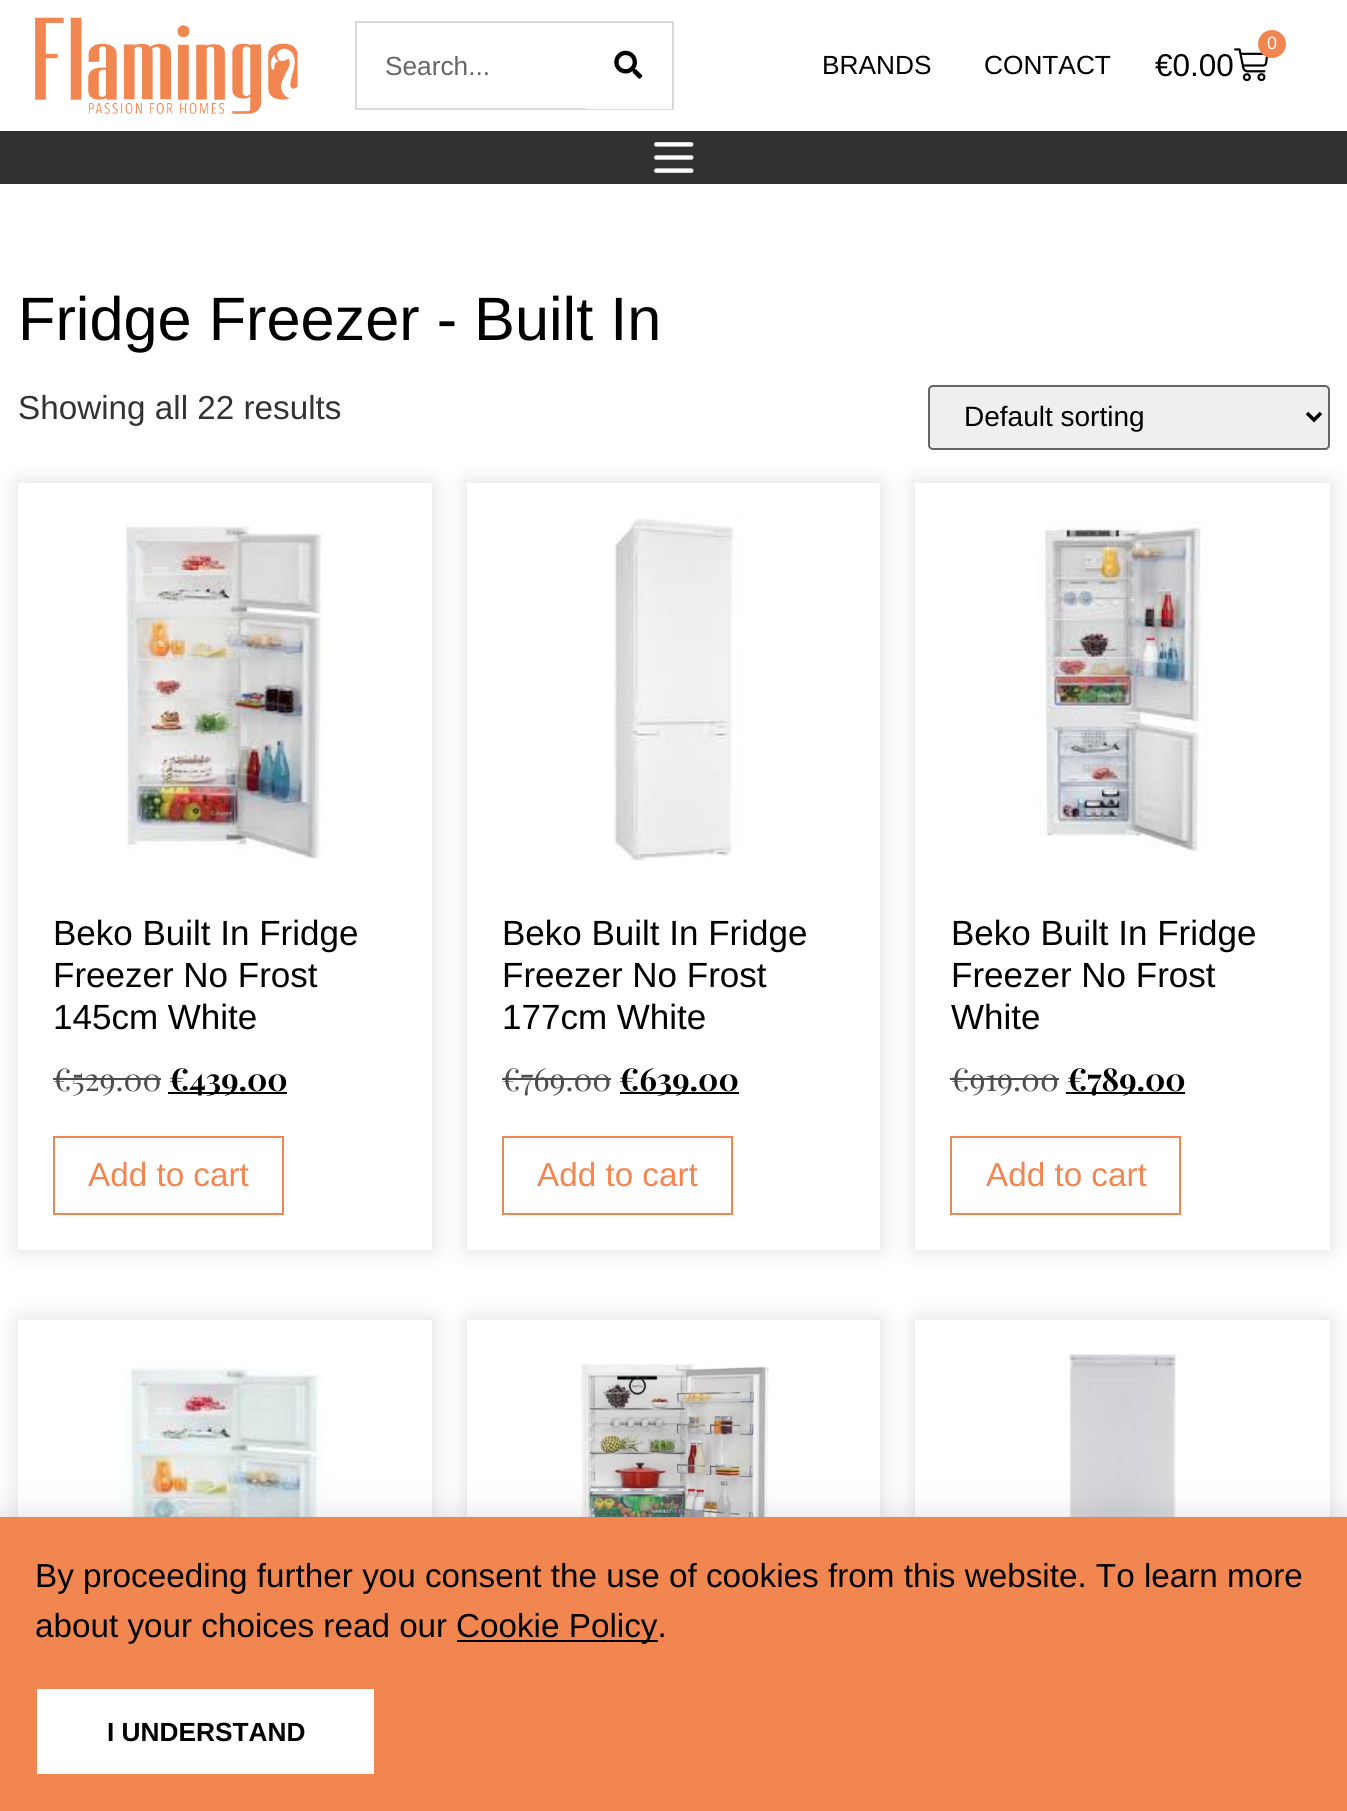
#include <cairo.h>
#include <math.h>
#include <stddef.h>


static void round_rect(cairo_t *cr, double x, double y, double w, double h, double r) {
    cairo_new_sub_path(cr);
    cairo_arc(cr, x + w - r, y + h - r, r, 0, M_PI / 2);
    cairo_arc(cr, x + r, y + h - r, r, M_PI / 2, M_PI);
    cairo_arc(cr, x + r, y + r, r, M_PI, 1.5 * M_PI);
    cairo_arc(cr, x + w - r, y + r, r, 1.5 * M_PI, 2 * M_PI);
    cairo_close_path(cr);
}

static void shadow(cairo_t *cr, double x, double y, double w, double h, double r, double blur, double alpha) {
    cairo_push_group_with_content(cr, CAIRO_CONTENT_ALPHA);
    cairo_set_operator(cr, CAIRO_OPERATOR_SOURCE);
    for (int i = 15; i >= -15 && fmin(w, h) + blur * i / 3 > 0; i -= 2) {
        double e = blur * i / 6;
        cairo_set_source_rgba(cr, 0, 0, 0, alpha * erfc((i - 1) / 8.5) / 2);
        round_rect(cr, x - e, y - e, w + 2 * e, h + 2 * e, fmax(0, fmin(r + e + blur * .6, fmin(w, h) / 2 + e)));
        cairo_fill(cr);
    }
    cairo_pattern_t *soft = cairo_pop_group(cr);
    cairo_mask(cr, soft);
    cairo_pattern_destroy(soft);
}

static void picture(cairo_t *cr, const char *path, double x, double y, double w, double h) {
    cairo_surface_t *image = cairo_image_surface_create_from_png(path);
    cairo_save(cr);
    cairo_set_source_surface(cr, image, x, y);
    cairo_rectangle(cr, x, y, w, h);
    cairo_fill(cr);
    cairo_restore(cr);
    cairo_surface_destroy(image);
}

int main(void) {
    cairo_surface_t *surface = cairo_image_surface_create(CAIRO_FORMAT_RGB24, 1347, 1811);
    cairo_t *cr = cairo_create(surface);
    cairo_font_options_t *options = cairo_font_options_create();
    cairo_font_options_set_hint_metrics(options, CAIRO_HINT_METRICS_OFF);
    cairo_font_options_set_hint_style(options, CAIRO_HINT_STYLE_NONE);
    cairo_set_font_options(cr, options);
    cairo_set_miter_limit(cr, 4);
    cairo_set_source_rgb(cr, 1, 1, 1);
    cairo_paint(cr);
    picture(cr, "img1.png", 35, 17, 263, 97);
    cairo_rectangle(cr, 356, 22, 317, 87);
    cairo_set_source_rgb(cr, 0.855, 0.855, 0.855);
    cairo_stroke(cr);
    cairo_select_font_face(cr, "Liberation Sans", CAIRO_FONT_SLANT_NORMAL, CAIRO_FONT_WEIGHT_NORMAL);
    cairo_set_font_size(cr, 26.25);
    cairo_set_source_rgb(cr, 0.4, 0.4, 0.4);
    cairo_move_to(cr, 385, 75);
    cairo_show_text(cr, "Search...");
    cairo_set_source_rgb(cr, 1, 1, 1);
    cairo_rectangle(cr, 585, 108, 87, 1);
    cairo_fill(cr);
    picture(cr, "img2.png", 614, 50, 29, 29);
    cairo_set_source_rgb(cr, 0, 0, 0);
    cairo_move_to(cr, 822, 74);
    cairo_show_text(cr, "BRANDS");
    cairo_move_to(cr, 984, 74);
    cairo_show_text(cr, "CONTACT");
    picture(cr, "img3.png", 1234, 48, 34, 34);
    cairo_set_source_rgb(cr, 0.949, 0.525, 0.318);
    cairo_arc(cr, 1272, 44, 14, 0, 2 * M_PI);
    cairo_fill(cr);
    cairo_set_font_size(cr, 18);
    cairo_set_source_rgb(cr, 1, 1, 1);
    cairo_move_to(cr, 1267, 49);
    cairo_show_text(cr, "0");
    cairo_set_font_size(cr, 31.5);
    cairo_set_source_rgb(cr, 0, 0, 0);
    cairo_move_to(cr, 1155, 76);
    cairo_show_text(cr, "€0.00");
    cairo_set_source_rgb(cr, 0.192, 0.192, 0.192);
    cairo_rectangle(cr, 0, 131, 1347, 53);
    cairo_fill(cr);
    picture(cr, "img4.png", 654, 142, 40, 31);
    cairo_set_font_size(cr, 61.25);
    cairo_set_source_rgb(cr, 0, 0, 0);
    cairo_move_to(cr, 18, 340);
    cairo_show_text(cr, "Fridge Freezer - Built In");
    cairo_set_font_size(cr, 33.25);
    cairo_set_source_rgb(cr, 0.2, 0.2, 0.2);
    cairo_move_to(cr, 18, 419);
    cairo_show_text(cr, "Showing all 22 results");
    cairo_set_source_rgb(cr, 0.937, 0.937, 0.937);
    round_rect(cr, 929, 386, 400, 63, 4);
    cairo_fill_preserve(cr);
    cairo_set_source_rgb(cr, 0.4, 0.4, 0.4);
    cairo_stroke(cr);
    cairo_new_path(cr);
    cairo_move_to(cr, 1307, 413);
    cairo_line_to(cr, 1314, 420);
    cairo_line_to(cr, 1321, 413);
    cairo_set_source_rgb(cr, 0, 0, 0);
    cairo_set_line_width(cr, 3.5);
    cairo_stroke(cr);
    cairo_set_font_size(cr, 28);
    cairo_move_to(cr, 964, 426);
    cairo_show_text(cr, "Default sorting");
    cairo_save(cr);
    cairo_set_fill_rule(cr, CAIRO_FILL_RULE_EVEN_ODD);
    cairo_new_path(cr);
    cairo_move_to(cr, 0, 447);
    cairo_line_to(cr, 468, 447);
    cairo_line_to(cr, 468, 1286);
    cairo_line_to(cr, 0, 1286);
    cairo_close_path(cr);
    cairo_move_to(cr, 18, 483);
    cairo_line_to(cr, 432, 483);
    cairo_line_to(cr, 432, 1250);
    cairo_line_to(cr, 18, 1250);
    cairo_close_path(cr);
    cairo_clip(cr);
    cairo_set_source_rgb(cr, 0, 0, 0);
    shadow(cr, 18, 483, 414, 767, 0, 11.5, 0.13);
    cairo_restore(cr);
    picture(cr, "img5.png", 126, 523, 198, 336);
    cairo_set_font_size(cr, 35);
    cairo_move_to(cr, 53, 945);
    cairo_show_text(cr, "Beko Built In Fridge");
    cairo_move_to(cr, 53, 987);
    cairo_show_text(cr, "Freezer No Frost");
    cairo_move_to(cr, 53, 1029);
    cairo_show_text(cr, "145cm White");
    cairo_select_font_face(cr, "Playfair Display", CAIRO_FONT_SLANT_NORMAL, CAIRO_FONT_WEIGHT_NORMAL);
    cairo_set_font_size(cr, 31.5);
    cairo_set_source_rgb(cr, 0.302, 0.302, 0.302);
    cairo_move_to(cr, 53, 1091);
    cairo_show_text(cr, "€529.00");
    cairo_rectangle(cr, 53, 1078, 108, 2);
    cairo_fill(cr);
    cairo_set_source_rgb(cr, 0, 0, 0);
    cairo_rectangle(cr, 168, 1092, 119, 2);
    cairo_fill(cr);
    cairo_select_font_face(cr, "Playfair Display", CAIRO_FONT_SLANT_NORMAL, CAIRO_FONT_WEIGHT_BOLD);
    cairo_move_to(cr, 169, 1091);
    cairo_show_text(cr, "€439.00");
    cairo_rectangle(cr, 54, 1137, 229, 77);
    cairo_set_source_rgb(cr, 0.949, 0.525, 0.318);
    cairo_set_line_width(cr, 2);
    cairo_stroke(cr);
    cairo_select_font_face(cr, "Liberation Sans", CAIRO_FONT_SLANT_NORMAL, CAIRO_FONT_WEIGHT_NORMAL);
    cairo_set_font_size(cr, 33.25);
    cairo_move_to(cr, 88, 1186);
    cairo_show_text(cr, "Add to cart");
    cairo_save(cr);
    cairo_set_fill_rule(cr, CAIRO_FILL_RULE_EVEN_ODD);
    cairo_new_path(cr);
    cairo_move_to(cr, 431, 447);
    cairo_line_to(cr, 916, 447);
    cairo_line_to(cr, 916, 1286);
    cairo_line_to(cr, 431, 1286);
    cairo_close_path(cr);
    cairo_move_to(cr, 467, 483);
    cairo_line_to(cr, 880, 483);
    cairo_line_to(cr, 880, 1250);
    cairo_line_to(cr, 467, 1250);
    cairo_close_path(cr);
    cairo_clip(cr);
    cairo_set_source_rgb(cr, 0, 0, 0);
    shadow(cr, 467, 483, 413, 767, 0, 11.5, 0.13);
    cairo_restore(cr);
    picture(cr, "img6.png", 614, 518, 128, 343);
    cairo_set_font_size(cr, 35);
    cairo_set_source_rgb(cr, 0, 0, 0);
    cairo_move_to(cr, 502, 945);
    cairo_show_text(cr, "Beko Built In Fridge");
    cairo_move_to(cr, 502, 987);
    cairo_show_text(cr, "Freezer No Frost");
    cairo_move_to(cr, 502, 1029);
    cairo_show_text(cr, "177cm White");
    cairo_select_font_face(cr, "Playfair Display", CAIRO_FONT_SLANT_NORMAL, CAIRO_FONT_WEIGHT_NORMAL);
    cairo_set_font_size(cr, 31.5);
    cairo_set_source_rgb(cr, 0.302, 0.302, 0.302);
    cairo_move_to(cr, 502, 1091);
    cairo_show_text(cr, "€769.00");
    cairo_rectangle(cr, 502, 1078, 109, 2);
    cairo_fill(cr);
    cairo_set_source_rgb(cr, 0, 0, 0);
    cairo_rectangle(cr, 620, 1092, 119, 2);
    cairo_fill(cr);
    cairo_select_font_face(cr, "Playfair Display", CAIRO_FONT_SLANT_NORMAL, CAIRO_FONT_WEIGHT_BOLD);
    cairo_move_to(cr, 619, 1091);
    cairo_show_text(cr, "€639.00");
    cairo_rectangle(cr, 503, 1137, 229, 77);
    cairo_set_source_rgb(cr, 0.949, 0.525, 0.318);
    cairo_stroke(cr);
    cairo_select_font_face(cr, "Liberation Sans", CAIRO_FONT_SLANT_NORMAL, CAIRO_FONT_WEIGHT_NORMAL);
    cairo_set_font_size(cr, 33.25);
    cairo_move_to(cr, 537, 1186);
    cairo_show_text(cr, "Add to cart");
    cairo_save(cr);
    cairo_set_fill_rule(cr, CAIRO_FILL_RULE_EVEN_ODD);
    cairo_new_path(cr);
    cairo_move_to(cr, 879, 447);
    cairo_line_to(cr, 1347, 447);
    cairo_line_to(cr, 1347, 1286);
    cairo_line_to(cr, 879, 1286);
    cairo_close_path(cr);
    cairo_move_to(cr, 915, 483);
    cairo_line_to(cr, 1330, 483);
    cairo_line_to(cr, 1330, 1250);
    cairo_line_to(cr, 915, 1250);
    cairo_close_path(cr);
    cairo_clip(cr);
    cairo_set_source_rgb(cr, 0, 0, 0);
    shadow(cr, 915, 483, 415, 767, 0, 11.5, 0.13);
    cairo_restore(cr);
    picture(cr, "img7.png", 1038, 521, 170, 335);
    cairo_set_font_size(cr, 35);
    cairo_set_source_rgb(cr, 0, 0, 0);
    cairo_move_to(cr, 951, 945);
    cairo_show_text(cr, "Beko Built In Fridge");
    cairo_move_to(cr, 951, 987);
    cairo_show_text(cr, "Freezer No Frost");
    cairo_move_to(cr, 951, 1029);
    cairo_show_text(cr, "White");
    cairo_select_font_face(cr, "Playfair Display", CAIRO_FONT_SLANT_NORMAL, CAIRO_FONT_WEIGHT_NORMAL);
    cairo_set_font_size(cr, 31.5);
    cairo_set_source_rgb(cr, 0.302, 0.302, 0.302);
    cairo_move_to(cr, 951, 1091);
    cairo_show_text(cr, "€919.00");
    cairo_rectangle(cr, 950, 1078, 109, 2);
    cairo_fill(cr);
    cairo_set_source_rgb(cr, 0, 0, 0);
    cairo_rectangle(cr, 1066, 1092, 119, 2);
    cairo_fill(cr);
    cairo_select_font_face(cr, "Playfair Display", CAIRO_FONT_SLANT_NORMAL, CAIRO_FONT_WEIGHT_BOLD);
    cairo_move_to(cr, 1067, 1091);
    cairo_show_text(cr, "€789.00");
    cairo_rectangle(cr, 951, 1137, 229, 77);
    cairo_set_source_rgb(cr, 0.949, 0.525, 0.318);
    cairo_stroke(cr);
    cairo_select_font_face(cr, "Liberation Sans", CAIRO_FONT_SLANT_NORMAL, CAIRO_FONT_WEIGHT_NORMAL);
    cairo_set_font_size(cr, 33.25);
    cairo_move_to(cr, 986, 1186);
    cairo_show_text(cr, "Add to cart");
    cairo_save(cr);
    cairo_set_fill_rule(cr, CAIRO_FILL_RULE_EVEN_ODD);
    cairo_new_path(cr);
    cairo_move_to(cr, 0, 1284);
    cairo_line_to(cr, 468, 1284);
    cairo_line_to(cr, 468, 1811);
    cairo_line_to(cr, 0, 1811);
    cairo_close_path(cr);
    cairo_move_to(cr, 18, 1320);
    cairo_line_to(cr, 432, 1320);
    cairo_line_to(cr, 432, 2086);
    cairo_line_to(cr, 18, 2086);
    cairo_close_path(cr);
    cairo_clip(cr);
    cairo_set_source_rgb(cr, 0, 0, 0);
    shadow(cr, 18, 1320, 414, 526, 0, 11.5, 0.13);
    cairo_restore(cr);
    picture(cr, "img8.png", 122, 1367, 201, 150);
    cairo_save(cr);
    cairo_set_fill_rule(cr, CAIRO_FILL_RULE_EVEN_ODD);
    cairo_new_path(cr);
    cairo_move_to(cr, 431, 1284);
    cairo_line_to(cr, 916, 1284);
    cairo_line_to(cr, 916, 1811);
    cairo_line_to(cr, 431, 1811);
    cairo_close_path(cr);
    cairo_move_to(cr, 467, 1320);
    cairo_line_to(cr, 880, 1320);
    cairo_line_to(cr, 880, 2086);
    cairo_line_to(cr, 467, 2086);
    cairo_close_path(cr);
    cairo_clip(cr);
    cairo_set_source_rgb(cr, 0, 0, 0);
    shadow(cr, 467, 1320, 413, 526, 0, 11.5, 0.13);
    cairo_restore(cr);
    picture(cr, "img9.png", 581, 1363, 188, 154);
    cairo_save(cr);
    cairo_set_fill_rule(cr, CAIRO_FILL_RULE_EVEN_ODD);
    cairo_new_path(cr);
    cairo_move_to(cr, 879, 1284);
    cairo_line_to(cr, 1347, 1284);
    cairo_line_to(cr, 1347, 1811);
    cairo_line_to(cr, 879, 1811);
    cairo_close_path(cr);
    cairo_move_to(cr, 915, 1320);
    cairo_line_to(cr, 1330, 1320);
    cairo_line_to(cr, 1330, 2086);
    cairo_line_to(cr, 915, 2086);
    cairo_close_path(cr);
    cairo_clip(cr);
    cairo_set_source_rgb(cr, 0, 0, 0);
    shadow(cr, 915, 1320, 415, 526, 0, 11.5, 0.13);
    cairo_restore(cr);
    picture(cr, "img10.png", 1063, 1354, 114, 163);
    cairo_set_source_rgb(cr, 0, 0, 0);
    shadow(cr, -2, 1526, 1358, 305, 0, 20, 0.2);
    cairo_set_source_rgb(cr, 0.949, 0.525, 0.318);
    cairo_rectangle(cr, 0, 1517, 1347, 294);
    cairo_fill(cr);
    cairo_set_source_rgb(cr, 0, 0, 0);
    cairo_move_to(cr, 35, 1587);
    cairo_show_text(cr, "By proceeding further you consent the use of cookies from this website. To learn more");
    cairo_move_to(cr, 35, 1637);
    cairo_show_text(cr, "about your choices read our");
    cairo_rectangle(cr, 457, 1640, 201, 2);
    cairo_fill(cr);
    cairo_move_to(cr, 456, 1637);
    cairo_show_text(cr, "Cookie Policy.");
    cairo_set_source_rgb(cr, 1, 1, 1);
    cairo_rectangle(cr, 37, 1689, 337, 85);
    cairo_fill(cr);
    cairo_select_font_face(cr, "Liberation Sans", CAIRO_FONT_SLANT_NORMAL, CAIRO_FONT_WEIGHT_BOLD);
    cairo_set_font_size(cr, 26.25);
    cairo_set_source_rgb(cr, 0, 0, 0);
    cairo_move_to(cr, 107, 1741);
    cairo_show_text(cr, "I UNDERSTAND");
    cairo_surface_write_to_png(surface, "page.png");
    cairo_font_options_destroy(options);
    cairo_destroy(cr);
    cairo_surface_destroy(surface);
    return 0;
}
